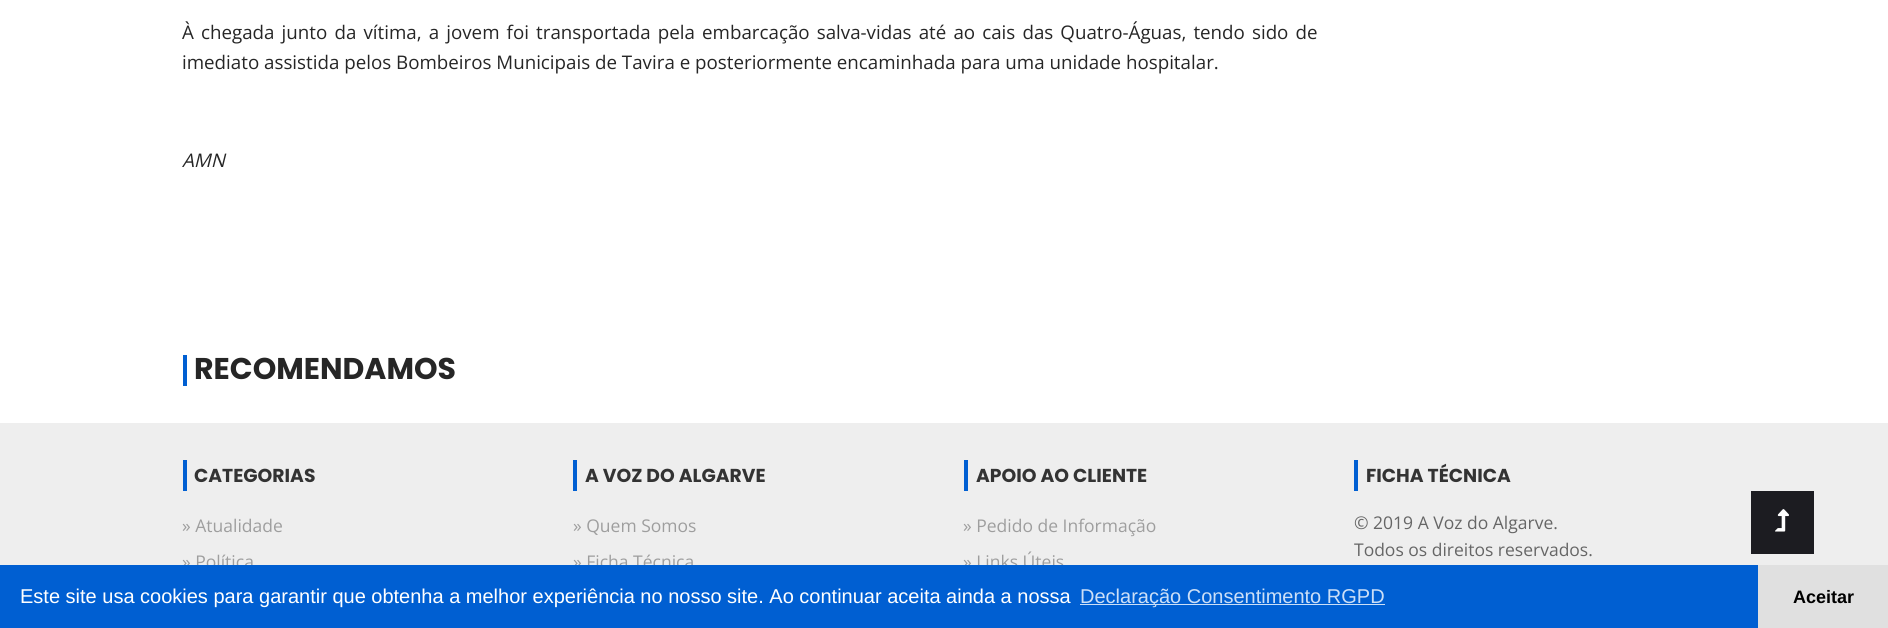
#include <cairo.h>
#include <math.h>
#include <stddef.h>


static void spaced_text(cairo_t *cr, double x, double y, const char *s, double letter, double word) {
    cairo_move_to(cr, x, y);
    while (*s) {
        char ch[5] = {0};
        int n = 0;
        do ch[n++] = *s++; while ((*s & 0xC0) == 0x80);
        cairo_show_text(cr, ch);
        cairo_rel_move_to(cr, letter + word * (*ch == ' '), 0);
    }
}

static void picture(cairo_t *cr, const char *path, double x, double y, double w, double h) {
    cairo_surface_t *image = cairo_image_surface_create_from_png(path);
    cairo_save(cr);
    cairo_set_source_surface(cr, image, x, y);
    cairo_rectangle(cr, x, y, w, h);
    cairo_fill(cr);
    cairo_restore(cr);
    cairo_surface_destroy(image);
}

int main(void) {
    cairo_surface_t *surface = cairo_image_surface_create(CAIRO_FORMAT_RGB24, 1888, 628);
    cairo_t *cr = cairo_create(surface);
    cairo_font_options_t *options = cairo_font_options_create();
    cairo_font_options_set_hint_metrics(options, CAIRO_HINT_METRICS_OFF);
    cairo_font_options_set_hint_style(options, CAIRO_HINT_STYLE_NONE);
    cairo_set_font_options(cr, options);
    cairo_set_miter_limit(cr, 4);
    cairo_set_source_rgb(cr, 1, 1, 1);
    cairo_paint(cr);
    cairo_select_font_face(cr, "Open Sans", CAIRO_FONT_SLANT_NORMAL, CAIRO_FONT_WEIGHT_NORMAL);
    cairo_set_font_size(cr, 18.75);
    cairo_set_source_rgb(cr, 0.149, 0.149, 0.149);
    spaced_text(cr, 182, 39, "À chegada junto da vítima, a jovem foi transportada pela embarcação salva-vidas até ao cais das Quatro-Águas, tendo sido de", 0, 2.25);
    cairo_move_to(cr, 182, 69);
    cairo_show_text(cr, "imediato assistida pelos Bombeiros Municipais de Tavira e posteriormente encaminhada para uma unidade hospitalar.");
    cairo_select_font_face(cr, "Open Sans", CAIRO_FONT_SLANT_ITALIC, CAIRO_FONT_WEIGHT_NORMAL);
    cairo_move_to(cr, 182, 167);
    cairo_show_text(cr, "AMN");
    cairo_set_source_rgb(cr, 0, 0.373, 0.824);
    cairo_rectangle(cr, 183, 355, 4, 31);
    cairo_fill(cr);
    cairo_select_font_face(cr, "Poppins", CAIRO_FONT_SLANT_NORMAL, CAIRO_FONT_WEIGHT_BOLD);
    cairo_set_font_size(cr, 30);
    cairo_set_source_rgb(cr, 0.149, 0.149, 0.149);
    cairo_move_to(cr, 194, 379);
    cairo_show_text(cr, "RECOMENDAMOS");
    cairo_set_source_rgb(cr, 0.933, 0.933, 0.933);
    cairo_rectangle(cr, 0, 423, 1888, 142);
    cairo_fill(cr);
    cairo_set_source_rgb(cr, 0, 0.373, 0.824);
    cairo_rectangle(cr, 183, 460, 4, 31);
    cairo_fill(cr);
    cairo_set_font_size(cr, 18.75);
    cairo_set_source_rgb(cr, 0.2, 0.2, 0.2);
    cairo_move_to(cr, 194, 482);
    cairo_show_text(cr, "CATEGORIAS");
    cairo_select_font_face(cr, "Open Sans", CAIRO_FONT_SLANT_NORMAL, CAIRO_FONT_WEIGHT_NORMAL);
    cairo_set_font_size(cr, 17.5);
    cairo_set_source_rgb(cr, 0.62, 0.62, 0.62);
    cairo_move_to(cr, 182, 532);
    cairo_show_text(cr, "» Atualidade");
    cairo_move_to(cr, 182, 568);
    cairo_show_text(cr, "» Política");
    cairo_set_source_rgb(cr, 0, 0.373, 0.824);
    cairo_rectangle(cr, 573, 460, 4, 31);
    cairo_fill(cr);
    cairo_select_font_face(cr, "Poppins", CAIRO_FONT_SLANT_NORMAL, CAIRO_FONT_WEIGHT_BOLD);
    cairo_set_font_size(cr, 18.75);
    cairo_set_source_rgb(cr, 0.2, 0.2, 0.2);
    cairo_move_to(cr, 585, 482);
    cairo_show_text(cr, "A VOZ DO ALGARVE");
    cairo_select_font_face(cr, "Open Sans", CAIRO_FONT_SLANT_NORMAL, CAIRO_FONT_WEIGHT_NORMAL);
    cairo_set_font_size(cr, 17.5);
    cairo_set_source_rgb(cr, 0.62, 0.62, 0.62);
    cairo_move_to(cr, 573, 532);
    cairo_show_text(cr, "» Quem Somos");
    cairo_move_to(cr, 573, 568);
    cairo_show_text(cr, "» Ficha Técnica");
    cairo_set_source_rgb(cr, 0, 0.373, 0.824);
    cairo_rectangle(cr, 964, 460, 4, 31);
    cairo_fill(cr);
    cairo_select_font_face(cr, "Poppins", CAIRO_FONT_SLANT_NORMAL, CAIRO_FONT_WEIGHT_BOLD);
    cairo_set_font_size(cr, 18.75);
    cairo_set_source_rgb(cr, 0.2, 0.2, 0.2);
    cairo_move_to(cr, 976, 482);
    cairo_show_text(cr, "APOIO AO CLIENTE");
    cairo_select_font_face(cr, "Open Sans", CAIRO_FONT_SLANT_NORMAL, CAIRO_FONT_WEIGHT_NORMAL);
    cairo_set_font_size(cr, 17.5);
    cairo_set_source_rgb(cr, 0.62, 0.62, 0.62);
    cairo_move_to(cr, 963, 532);
    cairo_show_text(cr, "» Pedido de Informação");
    cairo_move_to(cr, 963, 568);
    cairo_show_text(cr, "» Links Úteis");
    cairo_set_source_rgb(cr, 0, 0.373, 0.824);
    cairo_rectangle(cr, 1354, 460, 4, 31);
    cairo_fill(cr);
    cairo_select_font_face(cr, "Poppins", CAIRO_FONT_SLANT_NORMAL, CAIRO_FONT_WEIGHT_BOLD);
    cairo_set_font_size(cr, 18.75);
    cairo_set_source_rgb(cr, 0.2, 0.2, 0.2);
    cairo_move_to(cr, 1366, 482);
    cairo_show_text(cr, "FICHA TÉCNICA");
    cairo_select_font_face(cr, "Open Sans", CAIRO_FONT_SLANT_NORMAL, CAIRO_FONT_WEIGHT_NORMAL);
    cairo_set_font_size(cr, 17.5);
    cairo_set_source_rgb(cr, 0.4, 0.4, 0.4);
    cairo_move_to(cr, 1354, 529);
    cairo_show_text(cr, "© 2019 A Voz do Algarve.");
    cairo_move_to(cr, 1354, 556);
    cairo_show_text(cr, "Todos os direitos reservados.");
    cairo_set_source_rgb(cr, 0.11, 0.11, 0.129);
    cairo_rectangle(cr, 1751, 491, 63, 63);
    cairo_fill(cr);
    picture(cr, "img1.png", 1775, 509, 14, 23);
    cairo_set_source_rgb(cr, 0, 0.373, 0.824);
    cairo_rectangle(cr, 0, 565, 1758, 63);
    cairo_fill(cr);
    cairo_select_font_face(cr, "Liberation Sans", CAIRO_FONT_SLANT_NORMAL, CAIRO_FONT_WEIGHT_NORMAL);
    cairo_set_font_size(cr, 20);
    cairo_set_source_rgb(cr, 1, 1, 1);
    cairo_move_to(cr, 20, 603);
    cairo_show_text(cr, "Este site usa cookies para garantir que obtenha a melhor experiência no nosso site. Ao continuar aceita ainda a nossa");
    cairo_set_source_rgb(cr, 0.8, 0.875, 0.965);
    cairo_rectangle(cr, 1080, 604, 305, 1);
    cairo_fill(cr);
    cairo_move_to(cr, 1080, 603);
    cairo_show_text(cr, "Declaração Consentimento RGPD");
    cairo_set_source_rgb(cr, 0.878, 0.878, 0.878);
    cairo_rectangle(cr, 1758, 565, 130, 63);
    cairo_fill(cr);
    cairo_select_font_face(cr, "Liberation Sans", CAIRO_FONT_SLANT_NORMAL, CAIRO_FONT_WEIGHT_BOLD);
    cairo_set_font_size(cr, 18);
    cairo_set_source_rgb(cr, 0, 0, 0);
    cairo_move_to(cr, 1793, 603);
    cairo_show_text(cr, "Aceitar");
    cairo_surface_write_to_png(surface, "page.png");
    cairo_font_options_destroy(options);
    cairo_destroy(cr);
    cairo_surface_destroy(surface);
    return 0;
}
